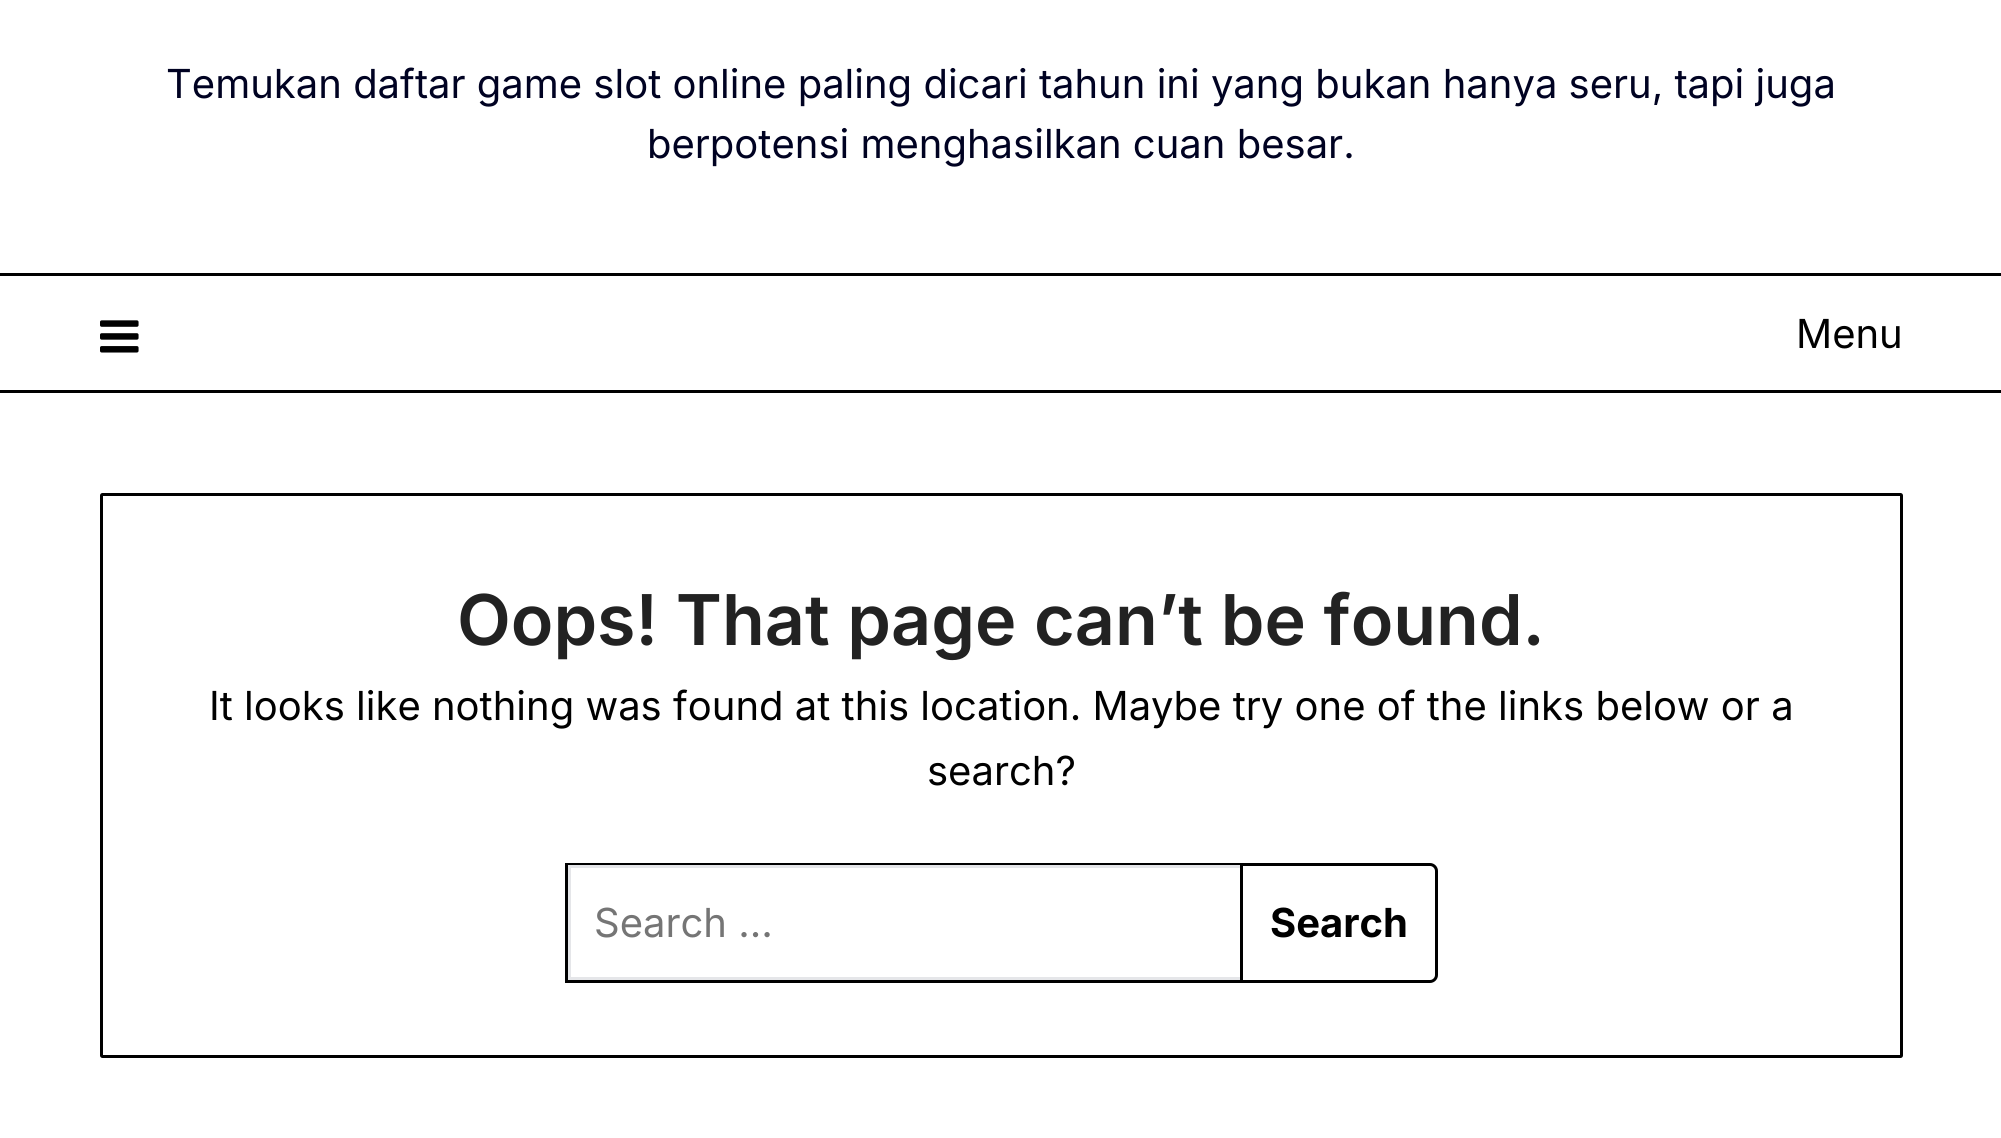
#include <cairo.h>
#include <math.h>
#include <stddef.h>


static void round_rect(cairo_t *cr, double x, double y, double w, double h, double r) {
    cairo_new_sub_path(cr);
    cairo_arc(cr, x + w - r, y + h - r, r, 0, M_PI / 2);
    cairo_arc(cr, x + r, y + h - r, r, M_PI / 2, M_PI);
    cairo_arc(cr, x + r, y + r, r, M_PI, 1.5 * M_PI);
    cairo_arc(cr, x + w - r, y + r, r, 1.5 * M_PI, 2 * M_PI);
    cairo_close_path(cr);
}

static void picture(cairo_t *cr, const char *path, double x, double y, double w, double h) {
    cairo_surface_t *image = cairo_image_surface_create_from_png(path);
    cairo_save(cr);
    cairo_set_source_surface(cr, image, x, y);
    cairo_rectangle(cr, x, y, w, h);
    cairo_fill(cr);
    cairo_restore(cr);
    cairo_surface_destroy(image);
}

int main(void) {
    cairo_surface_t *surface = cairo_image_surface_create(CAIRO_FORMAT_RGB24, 2001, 1138);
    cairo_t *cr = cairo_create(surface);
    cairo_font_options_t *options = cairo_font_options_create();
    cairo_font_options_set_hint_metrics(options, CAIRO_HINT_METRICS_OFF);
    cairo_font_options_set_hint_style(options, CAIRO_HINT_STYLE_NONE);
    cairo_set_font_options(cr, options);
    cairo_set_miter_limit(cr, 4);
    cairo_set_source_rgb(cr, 1, 1, 1);
    cairo_paint(cr);
    cairo_select_font_face(cr, "Inter", CAIRO_FONT_SLANT_NORMAL, CAIRO_FONT_WEIGHT_NORMAL);
    cairo_set_font_size(cr, 40);
    cairo_set_source_rgb(cr, 0, 0.008, 0.133);
    cairo_move_to(cr, 166, 98);
    cairo_show_text(cr, "Temukan daftar game slot online paling dicari tahun ini yang bukan hanya seru, tapi juga");
    cairo_move_to(cr, 647, 158);
    cairo_show_text(cr, "berpotensi menghasilkan cuan besar.");
    cairo_set_source_rgb(cr, 0, 0, 0);
    cairo_rectangle(cr, 0, 273, 2001, 3);
    cairo_fill(cr);
    cairo_rectangle(cr, 0, 390, 2001, 3);
    cairo_fill(cr);
    picture(cr, "img1.png", 100, 320, 39, 33);
    cairo_move_to(cr, 1796, 348);
    cairo_show_text(cr, "Menu");
    round_rect(cr, 101.5, 494.5, 1800, 562, 1);
    cairo_set_line_width(cr, 3);
    cairo_stroke(cr);
    cairo_select_font_face(cr, "Inter SemiBold", CAIRO_FONT_SLANT_NORMAL, CAIRO_FONT_WEIGHT_NORMAL);
    cairo_set_font_size(cr, 70);
    cairo_set_source_rgb(cr, 0.133, 0.133, 0.133);
    cairo_move_to(cr, 457, 645);
    cairo_show_text(cr, "Oops! That page can’t be found.");
    cairo_select_font_face(cr, "Inter", CAIRO_FONT_SLANT_NORMAL, CAIRO_FONT_WEIGHT_NORMAL);
    cairo_set_font_size(cr, 40);
    cairo_set_source_rgb(cr, 0, 0, 0);
    cairo_move_to(cr, 209, 720);
    cairo_show_text(cr, "It looks like nothing was found at this location. Maybe try one of the links below or a");
    cairo_move_to(cr, 927, 785);
    cairo_show_text(cr, "search?");
    cairo_rectangle(cr, 565, 863, 678, 2);
    cairo_fill(cr);
    cairo_rectangle(cr, 565, 980, 678, 3);
    cairo_fill(cr);
    cairo_rectangle(cr, 565, 863, 3, 120);
    cairo_fill(cr);
    cairo_rectangle(cr, 569.5, 866.5, 672, 112);
    cairo_set_source_rgb(cr, 0.898, 0.902, 0.914);
    cairo_stroke(cr);
    cairo_set_source_rgb(cr, 0.459, 0.459, 0.459);
    cairo_move_to(cr, 594, 937);
    cairo_show_text(cr, "Search …");
    cairo_new_path(cr);
    cairo_move_to(cr, 1241.5, 864.5);
    cairo_line_to(cr, 1430, 864.5);
    cairo_curve_to(cr, 1433.5, 864.5, 1436.5, 867.5, 1436.5, 871);
    cairo_line_to(cr, 1436.5, 975);
    cairo_curve_to(cr, 1436.5, 978.5, 1433.5, 981.5, 1430, 981.5);
    cairo_line_to(cr, 1241.5, 981.5);
    cairo_close_path(cr);
    cairo_set_source_rgb(cr, 0, 0, 0);
    cairo_stroke(cr);
    cairo_select_font_face(cr, "Inter", CAIRO_FONT_SLANT_NORMAL, CAIRO_FONT_WEIGHT_BOLD);
    cairo_move_to(cr, 1270, 937);
    cairo_show_text(cr, "Search");
    cairo_surface_write_to_png(surface, "page.png");
    cairo_font_options_destroy(options);
    cairo_destroy(cr);
    cairo_surface_destroy(surface);
    return 0;
}
